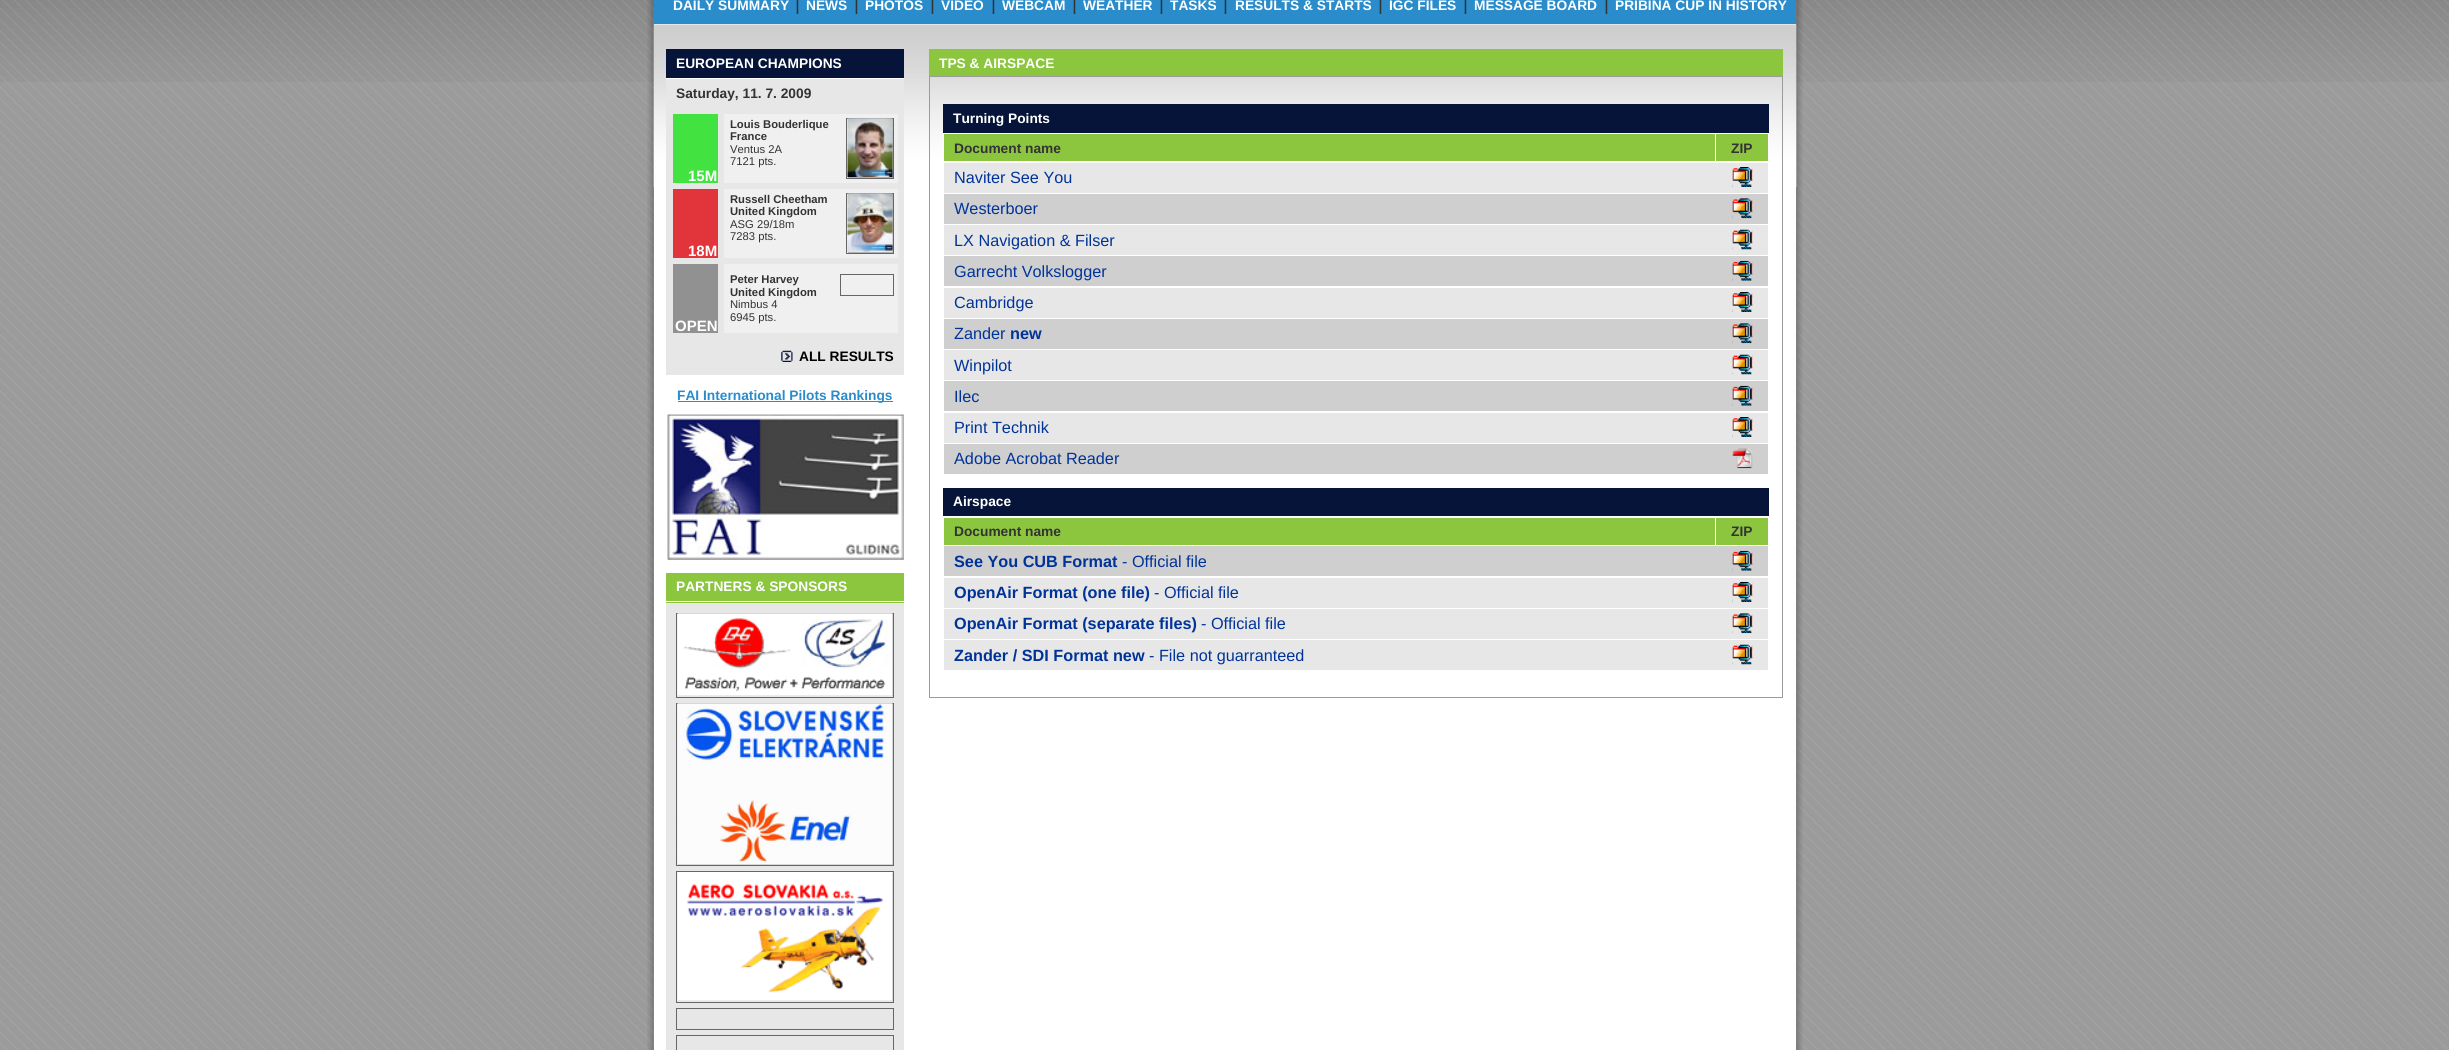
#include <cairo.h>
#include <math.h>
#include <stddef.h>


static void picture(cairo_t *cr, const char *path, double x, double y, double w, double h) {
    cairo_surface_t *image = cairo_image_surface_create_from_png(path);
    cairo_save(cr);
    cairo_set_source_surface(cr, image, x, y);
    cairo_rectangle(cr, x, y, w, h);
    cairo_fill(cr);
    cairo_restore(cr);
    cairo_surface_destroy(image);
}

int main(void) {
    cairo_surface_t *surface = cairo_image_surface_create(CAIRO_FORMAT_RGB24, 2449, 1050);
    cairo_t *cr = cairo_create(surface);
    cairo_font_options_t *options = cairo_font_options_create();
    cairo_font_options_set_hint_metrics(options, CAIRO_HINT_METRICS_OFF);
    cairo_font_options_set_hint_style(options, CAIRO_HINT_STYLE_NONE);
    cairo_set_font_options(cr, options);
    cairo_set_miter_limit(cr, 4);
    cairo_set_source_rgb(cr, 1, 1, 1);
    cairo_paint(cr);
    picture(cr, "img1.png", 0, 82, 2449, 968);
    picture(cr, "img2.png", 0, 0, 2449, 82);
    picture(cr, "img3.png", 647, 0, 7, 1050);
    picture(cr, "img4.png", 1796, 0, 7, 1050);
    cairo_set_source_rgb(cr, 0.165, 0.549, 0.796);
    cairo_rectangle(cr, 654, 0, 1142, 24);
    cairo_fill(cr);
    cairo_select_font_face(cr, "Liberation Sans", CAIRO_FONT_SLANT_NORMAL, CAIRO_FONT_WEIGHT_BOLD);
    cairo_set_font_size(cr, 13.75);
    cairo_set_source_rgb(cr, 1, 1, 1);
    cairo_move_to(cr, 673, 10);
    cairo_show_text(cr, "DAILY SUMMARY");
    cairo_select_font_face(cr, "Liberation Sans", CAIRO_FONT_SLANT_NORMAL, CAIRO_FONT_WEIGHT_NORMAL);
    cairo_set_font_size(cr, 19);
    cairo_set_source_rgb(cr, 0.2, 0.2, 0.2);
    cairo_move_to(cr, 795, 10);
    cairo_show_text(cr, "|");
    cairo_select_font_face(cr, "Liberation Sans", CAIRO_FONT_SLANT_NORMAL, CAIRO_FONT_WEIGHT_BOLD);
    cairo_set_font_size(cr, 13.75);
    cairo_set_source_rgb(cr, 1, 1, 1);
    cairo_move_to(cr, 806, 10);
    cairo_show_text(cr, "NEWS");
    cairo_select_font_face(cr, "Liberation Sans", CAIRO_FONT_SLANT_NORMAL, CAIRO_FONT_WEIGHT_NORMAL);
    cairo_set_font_size(cr, 19);
    cairo_set_source_rgb(cr, 0.2, 0.2, 0.2);
    cairo_move_to(cr, 854, 10);
    cairo_show_text(cr, "|");
    cairo_select_font_face(cr, "Liberation Sans", CAIRO_FONT_SLANT_NORMAL, CAIRO_FONT_WEIGHT_BOLD);
    cairo_set_font_size(cr, 13.75);
    cairo_set_source_rgb(cr, 1, 1, 1);
    cairo_move_to(cr, 865, 10);
    cairo_show_text(cr, "PHOTOS");
    cairo_select_font_face(cr, "Liberation Sans", CAIRO_FONT_SLANT_NORMAL, CAIRO_FONT_WEIGHT_NORMAL);
    cairo_set_font_size(cr, 19);
    cairo_set_source_rgb(cr, 0.2, 0.2, 0.2);
    cairo_move_to(cr, 930, 10);
    cairo_show_text(cr, "|");
    cairo_select_font_face(cr, "Liberation Sans", CAIRO_FONT_SLANT_NORMAL, CAIRO_FONT_WEIGHT_BOLD);
    cairo_set_font_size(cr, 13.75);
    cairo_set_source_rgb(cr, 1, 1, 1);
    cairo_move_to(cr, 941, 10);
    cairo_show_text(cr, "VIDEO");
    cairo_select_font_face(cr, "Liberation Sans", CAIRO_FONT_SLANT_NORMAL, CAIRO_FONT_WEIGHT_NORMAL);
    cairo_set_font_size(cr, 19);
    cairo_set_source_rgb(cr, 0.2, 0.2, 0.2);
    cairo_move_to(cr, 991, 10);
    cairo_show_text(cr, "|");
    cairo_select_font_face(cr, "Liberation Sans", CAIRO_FONT_SLANT_NORMAL, CAIRO_FONT_WEIGHT_BOLD);
    cairo_set_font_size(cr, 13.75);
    cairo_set_source_rgb(cr, 1, 1, 1);
    cairo_move_to(cr, 1002, 10);
    cairo_show_text(cr, "WEBCAM");
    cairo_select_font_face(cr, "Liberation Sans", CAIRO_FONT_SLANT_NORMAL, CAIRO_FONT_WEIGHT_NORMAL);
    cairo_set_font_size(cr, 19);
    cairo_set_source_rgb(cr, 0.2, 0.2, 0.2);
    cairo_move_to(cr, 1072, 10);
    cairo_show_text(cr, "|");
    cairo_select_font_face(cr, "Liberation Sans", CAIRO_FONT_SLANT_NORMAL, CAIRO_FONT_WEIGHT_BOLD);
    cairo_set_font_size(cr, 13.75);
    cairo_set_source_rgb(cr, 1, 1, 1);
    cairo_move_to(cr, 1083, 10);
    cairo_show_text(cr, "WEATHER");
    cairo_select_font_face(cr, "Liberation Sans", CAIRO_FONT_SLANT_NORMAL, CAIRO_FONT_WEIGHT_NORMAL);
    cairo_set_font_size(cr, 19);
    cairo_set_source_rgb(cr, 0.2, 0.2, 0.2);
    cairo_move_to(cr, 1159, 10);
    cairo_show_text(cr, "|");
    cairo_select_font_face(cr, "Liberation Sans", CAIRO_FONT_SLANT_NORMAL, CAIRO_FONT_WEIGHT_BOLD);
    cairo_set_font_size(cr, 13.75);
    cairo_set_source_rgb(cr, 1, 1, 1);
    cairo_move_to(cr, 1170, 10);
    cairo_show_text(cr, "TASKS");
    cairo_select_font_face(cr, "Liberation Sans", CAIRO_FONT_SLANT_NORMAL, CAIRO_FONT_WEIGHT_NORMAL);
    cairo_set_font_size(cr, 19);
    cairo_set_source_rgb(cr, 0.2, 0.2, 0.2);
    cairo_move_to(cr, 1223, 10);
    cairo_show_text(cr, "|");
    cairo_select_font_face(cr, "Liberation Sans", CAIRO_FONT_SLANT_NORMAL, CAIRO_FONT_WEIGHT_BOLD);
    cairo_set_font_size(cr, 13.75);
    cairo_set_source_rgb(cr, 1, 1, 1);
    cairo_move_to(cr, 1235, 10);
    cairo_show_text(cr, "RESULTS & STARTS");
    cairo_select_font_face(cr, "Liberation Sans", CAIRO_FONT_SLANT_NORMAL, CAIRO_FONT_WEIGHT_NORMAL);
    cairo_set_font_size(cr, 19);
    cairo_set_source_rgb(cr, 0.2, 0.2, 0.2);
    cairo_move_to(cr, 1378, 10);
    cairo_show_text(cr, "|");
    cairo_select_font_face(cr, "Liberation Sans", CAIRO_FONT_SLANT_NORMAL, CAIRO_FONT_WEIGHT_BOLD);
    cairo_set_font_size(cr, 13.75);
    cairo_set_source_rgb(cr, 1, 1, 1);
    cairo_move_to(cr, 1389, 10);
    cairo_show_text(cr, "IGC FILES");
    cairo_select_font_face(cr, "Liberation Sans", CAIRO_FONT_SLANT_NORMAL, CAIRO_FONT_WEIGHT_NORMAL);
    cairo_set_font_size(cr, 19);
    cairo_set_source_rgb(cr, 0.2, 0.2, 0.2);
    cairo_move_to(cr, 1463, 10);
    cairo_show_text(cr, "|");
    cairo_select_font_face(cr, "Liberation Sans", CAIRO_FONT_SLANT_NORMAL, CAIRO_FONT_WEIGHT_BOLD);
    cairo_set_font_size(cr, 13.75);
    cairo_set_source_rgb(cr, 1, 1, 1);
    cairo_move_to(cr, 1474, 10);
    cairo_show_text(cr, "MESSAGE BOARD");
    cairo_select_font_face(cr, "Liberation Sans", CAIRO_FONT_SLANT_NORMAL, CAIRO_FONT_WEIGHT_NORMAL);
    cairo_set_font_size(cr, 19);
    cairo_set_source_rgb(cr, 0.2, 0.2, 0.2);
    cairo_move_to(cr, 1604, 10);
    cairo_show_text(cr, "|");
    cairo_select_font_face(cr, "Liberation Sans", CAIRO_FONT_SLANT_NORMAL, CAIRO_FONT_WEIGHT_BOLD);
    cairo_set_font_size(cr, 13.75);
    cairo_set_source_rgb(cr, 1, 1, 1);
    cairo_move_to(cr, 1615, 10);
    cairo_show_text(cr, "PRIBINA CUP IN HISTORY");
    cairo_rectangle(cr, 654, 24, 1142, 1026);
    cairo_fill(cr);
    picture(cr, "img5.png", 653, 24, 1144, 163);
    cairo_set_source_rgb(cr, 0.906, 0.906, 0.906);
    cairo_rectangle(cr, 666, 79, 238, 296);
    cairo_fill(cr);
    cairo_set_source_rgb(cr, 0.02, 0.082, 0.22);
    cairo_rectangle(cr, 666, 49, 238, 29);
    cairo_fill(cr);
    cairo_set_source_rgb(cr, 1, 1, 1);
    cairo_rectangle(cr, 666, 78, 238, 1);
    cairo_fill(cr);
    cairo_move_to(cr, 676, 68);
    cairo_show_text(cr, "EUROPEAN CHAMPIONS");
    cairo_set_source_rgb(cr, 0.2, 0.2, 0.2);
    cairo_move_to(cr, 676, 98);
    cairo_show_text(cr, "Saturday, 11. 7. 2009");
    cairo_set_source_rgb(cr, 0.941, 0.941, 0.941);
    cairo_rectangle(cr, 724, 114, 174, 69);
    cairo_fill(cr);
    cairo_set_font_size(cr, 11.25);
    cairo_set_source_rgb(cr, 0.2, 0.2, 0.2);
    cairo_move_to(cr, 730, 128);
    cairo_show_text(cr, "Louis Bouderlique");
    cairo_rectangle(cr, 846.5, 118.5, 47, 60);
    cairo_set_source_rgb(cr, 0.4, 0.4, 0.4);
    cairo_set_line_width(cr, 1);
    cairo_stroke(cr);
    cairo_set_source_rgb(cr, 0.69, 0.69, 0.69);
    cairo_rectangle(cr, 848, 119, 45, 59);
    cairo_fill(cr);
    picture(cr, "img6.png", 847, 118, 46, 59);
    cairo_set_source_rgb(cr, 0.2, 0.2, 0.2);
    cairo_move_to(cr, 730, 140);
    cairo_show_text(cr, "France");
    cairo_select_font_face(cr, "Liberation Sans", CAIRO_FONT_SLANT_NORMAL, CAIRO_FONT_WEIGHT_NORMAL);
    cairo_move_to(cr, 730, 153);
    cairo_show_text(cr, "Ventus 2A");
    cairo_move_to(cr, 730, 165);
    cairo_show_text(cr, "7121 pts.");
    cairo_set_source_rgb(cr, 0.259, 0.89, 0.251);
    cairo_rectangle(cr, 673, 114, 45, 69);
    cairo_fill(cr);
    cairo_select_font_face(cr, "Liberation Sans", CAIRO_FONT_SLANT_NORMAL, CAIRO_FONT_WEIGHT_BOLD);
    cairo_set_font_size(cr, 15);
    cairo_set_source_rgb(cr, 1, 1, 1);
    cairo_move_to(cr, 688, 181);
    cairo_show_text(cr, "15M");
    cairo_set_source_rgb(cr, 0.941, 0.941, 0.941);
    cairo_rectangle(cr, 724, 189, 174, 69);
    cairo_fill(cr);
    cairo_set_font_size(cr, 11.25);
    cairo_set_source_rgb(cr, 0.2, 0.2, 0.2);
    cairo_move_to(cr, 730, 203);
    cairo_show_text(cr, "Russell Cheetham");
    cairo_rectangle(cr, 846.5, 193.5, 47, 60);
    cairo_set_source_rgb(cr, 0.4, 0.4, 0.4);
    cairo_stroke(cr);
    cairo_set_source_rgb(cr, 0.69, 0.69, 0.69);
    cairo_rectangle(cr, 848, 194, 45, 59);
    cairo_fill(cr);
    picture(cr, "img7.png", 847, 193, 46, 59);
    cairo_set_source_rgb(cr, 0.2, 0.2, 0.2);
    cairo_move_to(cr, 730, 215);
    cairo_show_text(cr, "United Kingdom");
    cairo_select_font_face(cr, "Liberation Sans", CAIRO_FONT_SLANT_NORMAL, CAIRO_FONT_WEIGHT_NORMAL);
    cairo_move_to(cr, 730, 228);
    cairo_show_text(cr, "ASG 29/18m");
    cairo_move_to(cr, 730, 240);
    cairo_show_text(cr, "7283 pts.");
    cairo_set_source_rgb(cr, 0.882, 0.208, 0.231);
    cairo_rectangle(cr, 673, 189, 45, 69);
    cairo_fill(cr);
    cairo_select_font_face(cr, "Liberation Sans", CAIRO_FONT_SLANT_NORMAL, CAIRO_FONT_WEIGHT_BOLD);
    cairo_set_font_size(cr, 15);
    cairo_set_source_rgb(cr, 1, 1, 1);
    cairo_move_to(cr, 688, 256);
    cairo_show_text(cr, "18M");
    cairo_set_source_rgb(cr, 0.941, 0.941, 0.941);
    cairo_rectangle(cr, 724, 264, 174, 69);
    cairo_fill(cr);
    cairo_set_font_size(cr, 11.25);
    cairo_set_source_rgb(cr, 0.2, 0.2, 0.2);
    cairo_move_to(cr, 730, 283);
    cairo_show_text(cr, "Peter Harvey");
    cairo_rectangle(cr, 840.5, 274.5, 53, 21);
    cairo_set_source_rgb(cr, 0.4, 0.4, 0.4);
    cairo_stroke(cr);
    cairo_set_source_rgb(cr, 0.2, 0.2, 0.2);
    cairo_move_to(cr, 730, 296);
    cairo_show_text(cr, "United Kingdom");
    cairo_select_font_face(cr, "Liberation Sans", CAIRO_FONT_SLANT_NORMAL, CAIRO_FONT_WEIGHT_NORMAL);
    cairo_move_to(cr, 730, 308);
    cairo_show_text(cr, "Nimbus 4");
    cairo_move_to(cr, 730, 321);
    cairo_show_text(cr, "6945 pts.");
    cairo_set_source_rgb(cr, 0.569, 0.569, 0.569);
    cairo_rectangle(cr, 673, 264, 45, 69);
    cairo_fill(cr);
    cairo_select_font_face(cr, "Liberation Sans", CAIRO_FONT_SLANT_NORMAL, CAIRO_FONT_WEIGHT_BOLD);
    cairo_set_font_size(cr, 15);
    cairo_set_source_rgb(cr, 1, 1, 1);
    cairo_move_to(cr, 675, 331);
    cairo_show_text(cr, "OPEN");
    picture(cr, "img8.png", 781, 350, 12, 12);
    cairo_set_font_size(cr, 13.75);
    cairo_set_source_rgb(cr, 0, 0, 0);
    cairo_move_to(cr, 799, 361);
    cairo_show_text(cr, "ALL RESULTS");
    cairo_set_source_rgb(cr, 0.165, 0.549, 0.796);
    cairo_rectangle(cr, 678, 401, 215, 1);
    cairo_fill(cr);
    cairo_move_to(cr, 677, 400);
    cairo_show_text(cr, "FAI International Pilots Rankings");
    cairo_set_source_rgb(cr, 0.69, 0.69, 0.69);
    cairo_rectangle(cr, 668, 415, 236, 145);
    cairo_fill(cr);
    picture(cr, "img9.png", 667, 414, 237, 146);
    cairo_set_source_rgb(cr, 0.906, 0.906, 0.906);
    cairo_rectangle(cr, 666, 603, 238, 447);
    cairo_fill(cr);
    cairo_set_source_rgb(cr, 0.549, 0.776, 0.247);
    cairo_rectangle(cr, 666, 573, 238, 30);
    cairo_fill(cr);
    cairo_set_source_rgb(cr, 1, 1, 1);
    cairo_rectangle(cr, 666, 601, 238, 1);
    cairo_fill(cr);
    cairo_move_to(cr, 676, 591);
    cairo_show_text(cr, "PARTNERS & SPONSORS");
    cairo_rectangle(cr, 676.5, 613.5, 217, 84);
    cairo_set_source_rgb(cr, 0.4, 0.4, 0.4);
    cairo_stroke(cr);
    cairo_set_source_rgb(cr, 0.69, 0.69, 0.69);
    cairo_rectangle(cr, 678, 614, 215, 82);
    cairo_fill(cr);
    picture(cr, "img10.png", 677, 613, 216, 83);
    cairo_rectangle(cr, 676.5, 703.5, 217, 162);
    cairo_set_source_rgb(cr, 0.4, 0.4, 0.4);
    cairo_stroke(cr);
    cairo_set_source_rgb(cr, 0.69, 0.69, 0.69);
    cairo_rectangle(cr, 678, 704, 215, 161);
    cairo_fill(cr);
    picture(cr, "img11.png", 677, 703, 216, 162);
    cairo_rectangle(cr, 676.5, 871.5, 217, 131);
    cairo_set_source_rgb(cr, 0.4, 0.4, 0.4);
    cairo_stroke(cr);
    cairo_set_source_rgb(cr, 0.69, 0.69, 0.69);
    cairo_rectangle(cr, 678, 873, 215, 128);
    cairo_fill(cr);
    picture(cr, "img12.png", 677, 872, 216, 129);
    cairo_rectangle(cr, 676.5, 1008.5, 217, 21);
    cairo_set_source_rgb(cr, 0.4, 0.4, 0.4);
    cairo_stroke(cr);
    cairo_rectangle(cr, 676.5, 1035.5, 217, 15);
    cairo_stroke(cr);
    cairo_set_source_rgb(cr, 0.549, 0.776, 0.247);
    cairo_rectangle(cr, 929, 49, 854, 27);
    cairo_fill(cr);
    cairo_set_source_rgb(cr, 1, 1, 1);
    cairo_move_to(cr, 939, 68);
    cairo_show_text(cr, "TPS & AIRSPACE");
    cairo_rectangle(cr, 929.5, 76.5, 853, 621);
    cairo_set_source_rgb(cr, 0.608, 0.608, 0.608);
    cairo_stroke(cr);
    cairo_set_source_rgb(cr, 1, 1, 1);
    cairo_rectangle(cr, 943, 133, 826, 19);
    cairo_fill(cr);
    cairo_set_source_rgb(cr, 0.02, 0.082, 0.22);
    cairo_rectangle(cr, 943, 104, 826, 29);
    cairo_fill(cr);
    cairo_set_source_rgb(cr, 1, 1, 1);
    cairo_move_to(cr, 953, 123);
    cairo_show_text(cr, "Turning Points");
    cairo_set_source_rgb(cr, 0.549, 0.776, 0.247);
    cairo_rectangle(cr, 944, 134, 771, 27);
    cairo_fill(cr);
    cairo_set_source_rgb(cr, 0.2, 0.2, 0.2);
    cairo_move_to(cr, 954, 153);
    cairo_show_text(cr, "Document name");
    cairo_set_source_rgb(cr, 0.549, 0.776, 0.247);
    cairo_rectangle(cr, 1716, 134, 52, 27);
    cairo_fill(cr);
    cairo_set_source_rgb(cr, 0.2, 0.2, 0.2);
    cairo_move_to(cr, 1731, 153);
    cairo_show_text(cr, "ZIP");
    cairo_set_source_rgb(cr, 0.906, 0.906, 0.906);
    cairo_rectangle(cr, 944, 163, 824, 30);
    cairo_fill(cr);
    cairo_select_font_face(cr, "Liberation Sans", CAIRO_FONT_SLANT_NORMAL, CAIRO_FONT_WEIGHT_NORMAL);
    cairo_set_font_size(cr, 16.25);
    cairo_set_source_rgb(cr, 0, 0.2, 0.6);
    cairo_move_to(cr, 954, 183);
    cairo_show_text(cr, "Naviter See You");
    picture(cr, "img13.png", 1732, 167, 21, 20);
    cairo_set_source_rgb(cr, 0.812, 0.812, 0.812);
    cairo_rectangle(cr, 944, 194, 824, 30);
    cairo_fill(cr);
    cairo_set_source_rgb(cr, 0, 0.2, 0.6);
    cairo_move_to(cr, 954, 214);
    cairo_show_text(cr, "Westerboer");
    picture(cr, "img14.png", 1732, 198, 21, 21);
    cairo_set_source_rgb(cr, 0.906, 0.906, 0.906);
    cairo_rectangle(cr, 944, 225, 824, 30);
    cairo_fill(cr);
    cairo_set_source_rgb(cr, 0, 0.2, 0.6);
    cairo_move_to(cr, 954, 246);
    cairo_show_text(cr, "LX Navigation & Filser");
    picture(cr, "img15.png", 1732, 229, 21, 21);
    cairo_set_source_rgb(cr, 0.812, 0.812, 0.812);
    cairo_rectangle(cr, 944, 256, 824, 30);
    cairo_fill(cr);
    cairo_set_source_rgb(cr, 0, 0.2, 0.6);
    cairo_move_to(cr, 954, 277);
    cairo_show_text(cr, "Garrecht Volkslogger");
    picture(cr, "img16.png", 1732, 260, 21, 21);
    cairo_set_source_rgb(cr, 0.906, 0.906, 0.906);
    cairo_rectangle(cr, 944, 288, 824, 30);
    cairo_fill(cr);
    cairo_set_source_rgb(cr, 0, 0.2, 0.6);
    cairo_move_to(cr, 954, 308);
    cairo_show_text(cr, "Cambridge");
    picture(cr, "img13.png", 1732, 292, 21, 20);
    cairo_set_source_rgb(cr, 0.812, 0.812, 0.812);
    cairo_rectangle(cr, 944, 319, 824, 30);
    cairo_fill(cr);
    cairo_set_source_rgb(cr, 0, 0.2, 0.6);
    cairo_move_to(cr, 954, 339);
    cairo_show_text(cr, "Zander");
    cairo_select_font_face(cr, "Liberation Sans", CAIRO_FONT_SLANT_NORMAL, CAIRO_FONT_WEIGHT_BOLD);
    cairo_move_to(cr, 1010, 339);
    cairo_show_text(cr, "new");
    picture(cr, "img17.png", 1732, 323, 21, 21);
    cairo_set_source_rgb(cr, 0.906, 0.906, 0.906);
    cairo_rectangle(cr, 944, 350, 824, 30);
    cairo_fill(cr);
    cairo_select_font_face(cr, "Liberation Sans", CAIRO_FONT_SLANT_NORMAL, CAIRO_FONT_WEIGHT_NORMAL);
    cairo_set_source_rgb(cr, 0, 0.2, 0.6);
    cairo_move_to(cr, 954, 371);
    cairo_show_text(cr, "Winpilot");
    picture(cr, "img18.png", 1732, 354, 21, 21);
    cairo_set_source_rgb(cr, 0.812, 0.812, 0.812);
    cairo_rectangle(cr, 944, 381, 824, 30);
    cairo_fill(cr);
    cairo_set_source_rgb(cr, 0, 0.2, 0.6);
    cairo_move_to(cr, 954, 402);
    cairo_show_text(cr, "Ilec");
    picture(cr, "img19.png", 1732, 385, 21, 21);
    cairo_set_source_rgb(cr, 0.906, 0.906, 0.906);
    cairo_rectangle(cr, 944, 413, 824, 30);
    cairo_fill(cr);
    cairo_set_source_rgb(cr, 0, 0.2, 0.6);
    cairo_move_to(cr, 954, 433);
    cairo_show_text(cr, "Print Technik");
    picture(cr, "img13.png", 1732, 417, 21, 20);
    cairo_set_source_rgb(cr, 0.812, 0.812, 0.812);
    cairo_rectangle(cr, 944, 444, 824, 30);
    cairo_fill(cr);
    cairo_set_source_rgb(cr, 0, 0.2, 0.6);
    cairo_move_to(cr, 954, 464);
    cairo_show_text(cr, "Adobe Acrobat Reader");
    picture(cr, "img20.png", 1732, 448, 21, 21);
    cairo_set_source_rgb(cr, 0.02, 0.082, 0.22);
    cairo_rectangle(cr, 943, 488, 826, 28);
    cairo_fill(cr);
    cairo_select_font_face(cr, "Liberation Sans", CAIRO_FONT_SLANT_NORMAL, CAIRO_FONT_WEIGHT_BOLD);
    cairo_set_font_size(cr, 13.75);
    cairo_set_source_rgb(cr, 1, 1, 1);
    cairo_move_to(cr, 953, 506);
    cairo_show_text(cr, "Airspace");
    cairo_set_source_rgb(cr, 0.549, 0.776, 0.247);
    cairo_rectangle(cr, 944, 518, 771, 27);
    cairo_fill(cr);
    cairo_set_source_rgb(cr, 0.2, 0.2, 0.2);
    cairo_move_to(cr, 954, 536);
    cairo_show_text(cr, "Document name");
    cairo_set_source_rgb(cr, 0.549, 0.776, 0.247);
    cairo_rectangle(cr, 1716, 518, 52, 27);
    cairo_fill(cr);
    cairo_set_source_rgb(cr, 0.2, 0.2, 0.2);
    cairo_move_to(cr, 1731, 536);
    cairo_show_text(cr, "ZIP");
    cairo_set_source_rgb(cr, 0.812, 0.812, 0.812);
    cairo_rectangle(cr, 944, 546, 824, 30);
    cairo_fill(cr);
    cairo_set_font_size(cr, 16.25);
    cairo_set_source_rgb(cr, 0, 0.2, 0.6);
    cairo_move_to(cr, 954, 567);
    cairo_show_text(cr, "See You CUB Format");
    cairo_select_font_face(cr, "Liberation Sans", CAIRO_FONT_SLANT_NORMAL, CAIRO_FONT_WEIGHT_NORMAL);
    cairo_move_to(cr, 1122, 567);
    cairo_show_text(cr, "- Official file");
    picture(cr, "img21.png", 1732, 550, 21, 21);
    cairo_set_source_rgb(cr, 0.906, 0.906, 0.906);
    cairo_rectangle(cr, 944, 578, 824, 30);
    cairo_fill(cr);
    cairo_select_font_face(cr, "Liberation Sans", CAIRO_FONT_SLANT_NORMAL, CAIRO_FONT_WEIGHT_BOLD);
    cairo_set_source_rgb(cr, 0, 0.2, 0.6);
    cairo_move_to(cr, 954, 598);
    cairo_show_text(cr, "OpenAir Format (one file)");
    cairo_select_font_face(cr, "Liberation Sans", CAIRO_FONT_SLANT_NORMAL, CAIRO_FONT_WEIGHT_NORMAL);
    cairo_move_to(cr, 1154, 598);
    cairo_show_text(cr, "- Official file");
    picture(cr, "img22.png", 1732, 582, 21, 20);
    cairo_set_source_rgb(cr, 0.906, 0.906, 0.906);
    cairo_rectangle(cr, 944, 609, 824, 30);
    cairo_fill(cr);
    cairo_select_font_face(cr, "Liberation Sans", CAIRO_FONT_SLANT_NORMAL, CAIRO_FONT_WEIGHT_BOLD);
    cairo_set_source_rgb(cr, 0, 0.2, 0.6);
    cairo_move_to(cr, 954, 629);
    cairo_show_text(cr, "OpenAir Format (separate files)");
    cairo_select_font_face(cr, "Liberation Sans", CAIRO_FONT_SLANT_NORMAL, CAIRO_FONT_WEIGHT_NORMAL);
    cairo_move_to(cr, 1201, 629);
    cairo_show_text(cr, "- Official file");
    picture(cr, "img23.png", 1732, 613, 21, 21);
    cairo_set_source_rgb(cr, 0.906, 0.906, 0.906);
    cairo_rectangle(cr, 944, 640, 824, 30);
    cairo_fill(cr);
    cairo_select_font_face(cr, "Liberation Sans", CAIRO_FONT_SLANT_NORMAL, CAIRO_FONT_WEIGHT_BOLD);
    cairo_set_source_rgb(cr, 0, 0.2, 0.6);
    cairo_move_to(cr, 954, 661);
    cairo_show_text(cr, "Zander / SDI Format new");
    cairo_select_font_face(cr, "Liberation Sans", CAIRO_FONT_SLANT_NORMAL, CAIRO_FONT_WEIGHT_NORMAL);
    cairo_move_to(cr, 1149, 661);
    cairo_show_text(cr, "- File not guarranteed");
    picture(cr, "img18.png", 1732, 644, 21, 21);
    cairo_surface_write_to_png(surface, "page.png");
    cairo_font_options_destroy(options);
    cairo_destroy(cr);
    cairo_surface_destroy(surface);
    return 0;
}
